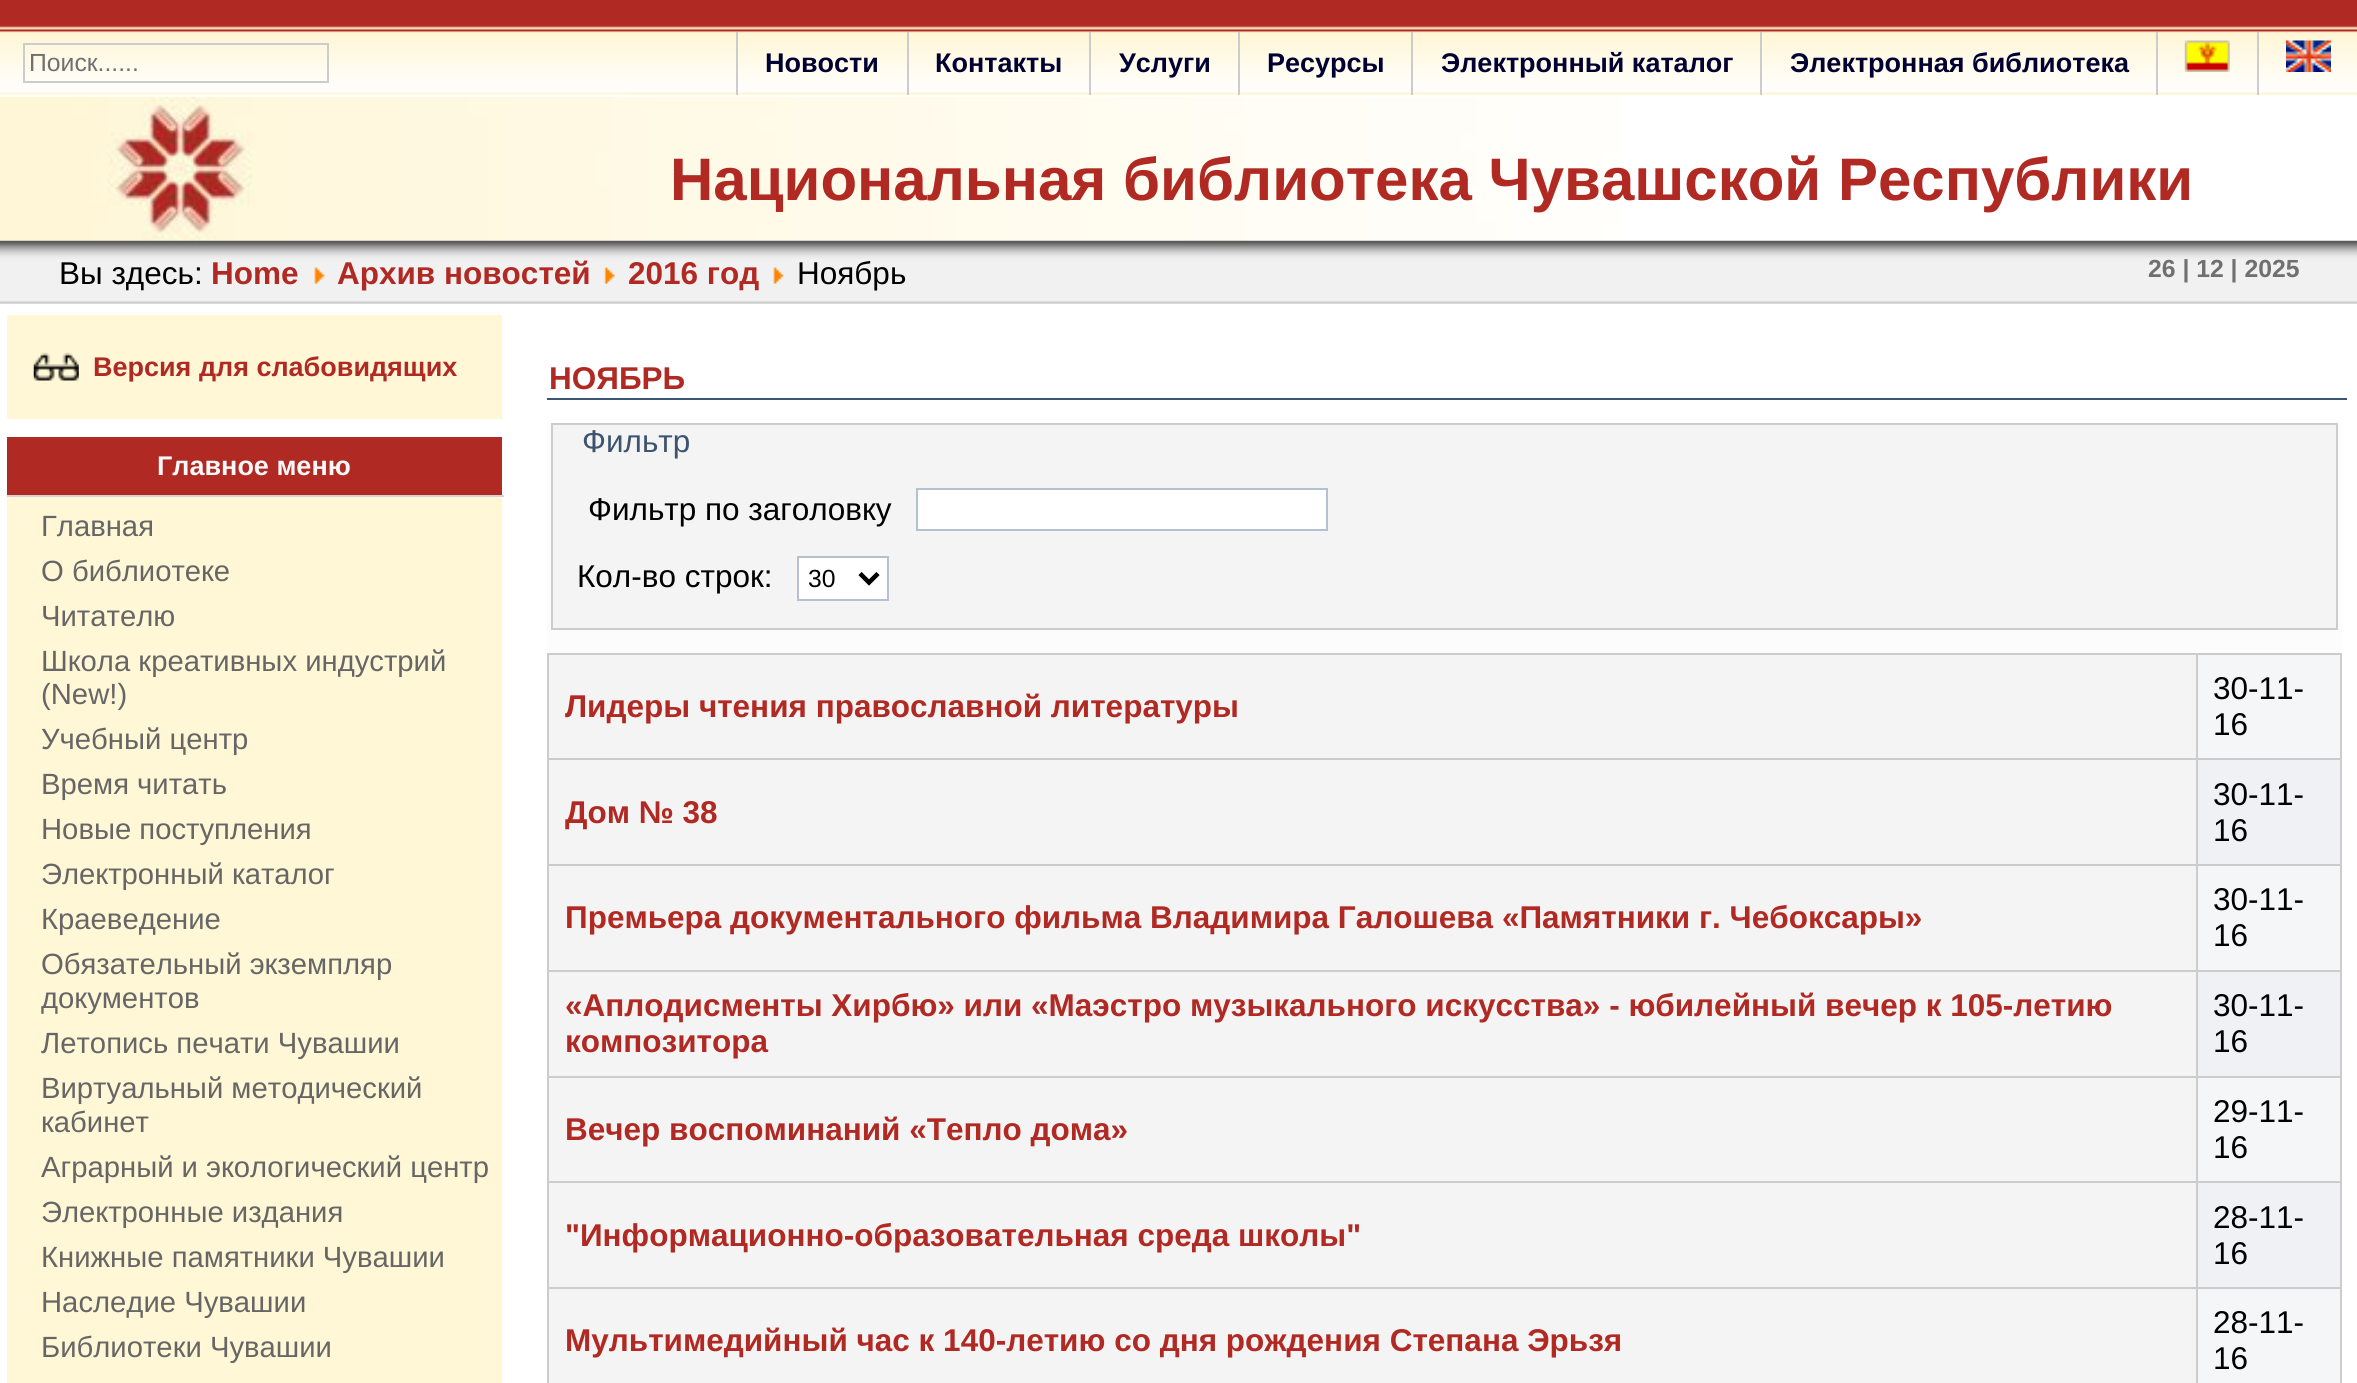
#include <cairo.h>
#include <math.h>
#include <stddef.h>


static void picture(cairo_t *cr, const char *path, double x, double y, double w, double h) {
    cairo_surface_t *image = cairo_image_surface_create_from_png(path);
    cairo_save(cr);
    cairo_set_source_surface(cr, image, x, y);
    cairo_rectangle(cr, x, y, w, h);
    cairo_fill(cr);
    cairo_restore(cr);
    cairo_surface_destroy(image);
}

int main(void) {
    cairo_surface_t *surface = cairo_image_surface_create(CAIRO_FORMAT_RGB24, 2357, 1383);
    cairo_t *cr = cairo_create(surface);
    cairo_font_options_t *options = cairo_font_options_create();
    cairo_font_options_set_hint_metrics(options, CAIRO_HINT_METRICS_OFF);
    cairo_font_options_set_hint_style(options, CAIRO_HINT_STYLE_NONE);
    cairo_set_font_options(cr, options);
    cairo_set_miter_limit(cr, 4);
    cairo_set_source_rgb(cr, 1, 1, 1);
    cairo_paint(cr);
    picture(cr, "img1.png", 0, 0, 2357, 95);
    cairo_rectangle(cr, 24, 44, 304, 38);
    cairo_set_source_rgb(cr, 0.8, 0.8, 0.8);
    cairo_stroke(cr);
    cairo_select_font_face(cr, "Liberation Sans", CAIRO_FONT_SLANT_NORMAL, CAIRO_FONT_WEIGHT_NORMAL);
    cairo_set_font_size(cr, 24.75);
    cairo_set_source_rgb(cr, 0.439, 0.439, 0.439);
    cairo_move_to(cr, 29, 71);
    cairo_show_text(cr, "Поиск......");
    picture(cr, "img2.png", 625, 94, 1732, 1);
    cairo_set_source_rgb(cr, 0.8, 0.8, 0.8);
    cairo_rectangle(cr, 736, 32, 2, 63);
    cairo_fill(cr);
    cairo_select_font_face(cr, "Liberation Sans", CAIRO_FONT_SLANT_NORMAL, CAIRO_FONT_WEIGHT_BOLD);
    cairo_set_font_size(cr, 27);
    cairo_set_source_rgb(cr, 0, 0, 0.2);
    cairo_move_to(cr, 765, 72);
    cairo_show_text(cr, "Новости");
    cairo_set_source_rgb(cr, 0.8, 0.8, 0.8);
    cairo_rectangle(cr, 907, 32, 2, 63);
    cairo_fill(cr);
    cairo_set_source_rgb(cr, 0, 0, 0.2);
    cairo_move_to(cr, 935, 72);
    cairo_show_text(cr, "Контакты");
    cairo_set_source_rgb(cr, 0.8, 0.8, 0.8);
    cairo_rectangle(cr, 1089, 32, 2, 63);
    cairo_fill(cr);
    cairo_set_source_rgb(cr, 0, 0, 0.2);
    cairo_move_to(cr, 1119, 72);
    cairo_show_text(cr, "Услуги");
    cairo_set_source_rgb(cr, 0.8, 0.8, 0.8);
    cairo_rectangle(cr, 1238, 32, 2, 63);
    cairo_fill(cr);
    cairo_set_source_rgb(cr, 0, 0, 0.2);
    cairo_move_to(cr, 1267, 72);
    cairo_show_text(cr, "Ресурсы");
    cairo_set_source_rgb(cr, 0.8, 0.8, 0.8);
    cairo_rectangle(cr, 1411, 32, 2, 63);
    cairo_fill(cr);
    cairo_set_source_rgb(cr, 0, 0, 0.2);
    cairo_move_to(cr, 1441, 72);
    cairo_show_text(cr, "Электронный каталог");
    cairo_set_source_rgb(cr, 0.8, 0.8, 0.8);
    cairo_rectangle(cr, 1760, 32, 2, 63);
    cairo_fill(cr);
    cairo_set_source_rgb(cr, 0, 0, 0.2);
    cairo_move_to(cr, 1790, 72);
    cairo_show_text(cr, "Электронная библиотека");
    cairo_set_source_rgb(cr, 0.8, 0.8, 0.8);
    cairo_rectangle(cr, 2156, 32, 2, 63);
    cairo_fill(cr);
    picture(cr, "img3.png", 2184, 40, 46, 32);
    cairo_rectangle(cr, 2257, 32, 2, 63);
    cairo_fill(cr);
    picture(cr, "img4.png", 2286, 40, 45, 32);
    picture(cr, "img5.png", 0, 96, 1620, 145);
    cairo_set_font_size(cr, 60);
    cairo_set_source_rgb(cr, 0.694, 0.161, 0.137);
    cairo_move_to(cr, 670, 200);
    cairo_show_text(cr, "Национальная библиотека Чувашской Республики");
    picture(cr, "img6.png", 0, 240, 2357, 64);
    cairo_select_font_face(cr, "Liberation Sans", CAIRO_FONT_SLANT_NORMAL, CAIRO_FONT_WEIGHT_NORMAL);
    cairo_set_font_size(cr, 31.5);
    cairo_set_source_rgb(cr, 0, 0, 0);
    cairo_move_to(cr, 59, 284);
    cairo_show_text(cr, "Вы здесь:");
    cairo_select_font_face(cr, "Liberation Sans", CAIRO_FONT_SLANT_NORMAL, CAIRO_FONT_WEIGHT_BOLD);
    cairo_set_source_rgb(cr, 0.694, 0.161, 0.137);
    cairo_move_to(cr, 211, 284);
    cairo_show_text(cr, "Home");
    picture(cr, "img7.png", 314, 267, 11, 17);
    cairo_move_to(cr, 337, 284);
    cairo_show_text(cr, "Архив новостей");
    picture(cr, "img8.png", 604, 267, 11, 17);
    cairo_move_to(cr, 628, 284);
    cairo_show_text(cr, "2016 год");
    picture(cr, "img9.png", 773, 267, 11, 17);
    cairo_select_font_face(cr, "Liberation Sans", CAIRO_FONT_SLANT_NORMAL, CAIRO_FONT_WEIGHT_NORMAL);
    cairo_set_source_rgb(cr, 0, 0, 0);
    cairo_move_to(cr, 797, 284);
    cairo_show_text(cr, "Ноябрь");
    cairo_select_font_face(cr, "Liberation Sans", CAIRO_FONT_SLANT_NORMAL, CAIRO_FONT_WEIGHT_BOLD);
    cairo_set_font_size(cr, 24.75);
    cairo_set_source_rgb(cr, 0.439, 0.439, 0.439);
    cairo_move_to(cr, 2148, 277);
    cairo_show_text(cr, "26 | 12 | 2025");
    cairo_set_source_rgb(cr, 1, 0.965, 0.839);
    cairo_rectangle(cr, 7, 315, 495, 104);
    cairo_fill(cr);
    picture(cr, "img10.png", 33, 352, 46, 29);
    cairo_set_font_size(cr, 27);
    cairo_set_source_rgb(cr, 0.694, 0.161, 0.137);
    cairo_move_to(cr, 93, 376);
    cairo_show_text(cr, "Версия для слабовидящих");
    cairo_set_source_rgb(cr, 1, 0.965, 0.839);
    cairo_rectangle(cr, 7, 497, 495, 886);
    cairo_fill(cr);
    cairo_set_source_rgb(cr, 0.694, 0.161, 0.137);
    cairo_rectangle(cr, 7, 437, 495, 58);
    cairo_fill(cr);
    cairo_set_source_rgb(cr, 0.824, 0.835, 0.847);
    cairo_rectangle(cr, 7, 495, 497, 2);
    cairo_fill(cr);
    cairo_set_source_rgb(cr, 0.965, 0.969, 0.976);
    cairo_move_to(cr, 157, 475);
    cairo_show_text(cr, "Главное меню");
    cairo_select_font_face(cr, "Liberation Sans", CAIRO_FONT_SLANT_NORMAL, CAIRO_FONT_WEIGHT_NORMAL);
    cairo_set_font_size(cr, 29.25);
    cairo_set_source_rgb(cr, 0.4, 0.4, 0.4);
    cairo_move_to(cr, 41, 536);
    cairo_show_text(cr, "Главная");
    cairo_move_to(cr, 41, 581);
    cairo_show_text(cr, "О библиотеке");
    cairo_move_to(cr, 41, 626);
    cairo_show_text(cr, "Читателю");
    cairo_move_to(cr, 41, 671);
    cairo_show_text(cr, "Школа креативных индустрий");
    cairo_move_to(cr, 41, 704);
    cairo_show_text(cr, "(New!)");
    cairo_move_to(cr, 41, 749);
    cairo_show_text(cr, "Учебный центр");
    cairo_move_to(cr, 41, 794);
    cairo_show_text(cr, "Время читать");
    cairo_move_to(cr, 41, 839);
    cairo_show_text(cr, "Новые поступления");
    cairo_move_to(cr, 41, 884);
    cairo_show_text(cr, "Электронный каталог");
    cairo_move_to(cr, 41, 929);
    cairo_show_text(cr, "Краеведение");
    cairo_move_to(cr, 41, 974);
    cairo_show_text(cr, "Обязательный экземпляр");
    cairo_move_to(cr, 41, 1008);
    cairo_show_text(cr, "документов");
    cairo_move_to(cr, 41, 1053);
    cairo_show_text(cr, "Летопись печати Чувашии");
    cairo_move_to(cr, 41, 1098);
    cairo_show_text(cr, "Виртуальный методический");
    cairo_move_to(cr, 41, 1132);
    cairo_show_text(cr, "кабинет");
    cairo_move_to(cr, 41, 1177);
    cairo_show_text(cr, "Аграрный и экологический центр");
    cairo_move_to(cr, 41, 1222);
    cairo_show_text(cr, "Электронные издания");
    cairo_move_to(cr, 41, 1267);
    cairo_show_text(cr, "Книжные памятники Чувашии");
    cairo_move_to(cr, 41, 1312);
    cairo_show_text(cr, "Наследие Чувашии");
    cairo_move_to(cr, 41, 1357);
    cairo_show_text(cr, "Библиотеки Чувашии");
    cairo_set_source_rgb(cr, 0.231, 0.333, 0.463);
    cairo_rectangle(cr, 547, 398, 1800, 2);
    cairo_fill(cr);
    cairo_select_font_face(cr, "Liberation Sans", CAIRO_FONT_SLANT_NORMAL, CAIRO_FONT_WEIGHT_BOLD);
    cairo_set_font_size(cr, 31.5);
    cairo_set_source_rgb(cr, 0.694, 0.161, 0.137);
    cairo_move_to(cr, 549, 389);
    cairo_show_text(cr, "НОЯБРЬ");
    cairo_set_source_rgb(cr, 0.988, 0.988, 0.988);
    cairo_rectangle(cr, 547, 423, 1795, 230);
    cairo_fill(cr);
    cairo_set_source_rgb(cr, 0.957, 0.957, 0.957);
    cairo_rectangle(cr, 552, 424, 1785, 205);
    cairo_fill_preserve(cr);
    cairo_set_source_rgb(cr, 0.8, 0.8, 0.8);
    cairo_stroke(cr);
    cairo_select_font_face(cr, "Liberation Sans", CAIRO_FONT_SLANT_NORMAL, CAIRO_FONT_WEIGHT_NORMAL);
    cairo_set_source_rgb(cr, 0.243, 0.325, 0.431);
    cairo_move_to(cr, 582, 452);
    cairo_show_text(cr, "Фильтр");
    cairo_set_source_rgb(cr, 0, 0, 0);
    cairo_move_to(cr, 588, 520);
    cairo_show_text(cr, "Фильтр по заголовку");
    cairo_set_source_rgb(cr, 1, 1, 1);
    cairo_rectangle(cr, 917, 489, 410, 41);
    cairo_fill_preserve(cr);
    cairo_set_source_rgb(cr, 0.706, 0.757, 0.82);
    cairo_stroke(cr);
    cairo_set_source_rgb(cr, 0, 0, 0);
    cairo_move_to(cr, 577, 587);
    cairo_show_text(cr, "Кол-во строк:");
    cairo_set_source_rgb(cr, 1, 1, 1);
    cairo_rectangle(cr, 798, 557, 90, 43);
    cairo_fill_preserve(cr);
    cairo_set_source_rgb(cr, 0.706, 0.757, 0.82);
    cairo_stroke(cr);
    cairo_new_path(cr);
    cairo_move_to(cr, 860, 573.5);
    cairo_line_to(cr, 869, 582.5);
    cairo_line_to(cr, 878, 573.5);
    cairo_set_source_rgb(cr, 0, 0, 0);
    cairo_set_line_width(cr, 4.5);
    cairo_stroke(cr);
    cairo_set_font_size(cr, 24.75);
    cairo_move_to(cr, 808, 587);
    cairo_show_text(cr, "30");
    cairo_set_source_rgb(cr, 0.957, 0.961, 0.969);
    cairo_rectangle(cr, 2198, 655, 142, 103);
    cairo_fill(cr);
    cairo_set_source_rgb(cr, 0.957, 0.957, 0.957);
    cairo_rectangle(cr, 549, 655, 1647, 103);
    cairo_fill(cr);
    cairo_set_source_rgb(cr, 0.8, 0.8, 0.8);
    cairo_rectangle(cr, 2196, 653, 146, 2);
    cairo_fill(cr);
    cairo_rectangle(cr, 2196, 758, 146, 2);
    cairo_fill(cr);
    cairo_rectangle(cr, 2196, 864, 146, 2);
    cairo_fill(cr);
    cairo_rectangle(cr, 2196, 970, 146, 2);
    cairo_fill(cr);
    cairo_rectangle(cr, 2196, 1076, 146, 2);
    cairo_fill(cr);
    cairo_rectangle(cr, 2196, 1181, 146, 2);
    cairo_fill(cr);
    cairo_rectangle(cr, 2196, 1287, 146, 2);
    cairo_fill(cr);
    cairo_rectangle(cr, 2196, 1287, 2, 96);
    cairo_fill(cr);
    cairo_rectangle(cr, 547, 1287, 1651, 2);
    cairo_fill(cr);
    cairo_rectangle(cr, 2196, 1181, 2, 108);
    cairo_fill(cr);
    cairo_rectangle(cr, 547, 1181, 1651, 2);
    cairo_fill(cr);
    cairo_rectangle(cr, 2196, 1076, 2, 108);
    cairo_fill(cr);
    cairo_rectangle(cr, 547, 1076, 1651, 2);
    cairo_fill(cr);
    cairo_rectangle(cr, 2196, 970, 2, 108);
    cairo_fill(cr);
    cairo_rectangle(cr, 547, 970, 1651, 2);
    cairo_fill(cr);
    cairo_rectangle(cr, 2196, 864, 2, 108);
    cairo_fill(cr);
    cairo_rectangle(cr, 547, 864, 1651, 2);
    cairo_fill(cr);
    cairo_rectangle(cr, 2196, 758, 2, 108);
    cairo_fill(cr);
    cairo_rectangle(cr, 547, 758, 1651, 2);
    cairo_fill(cr);
    cairo_rectangle(cr, 2196, 653, 2, 108);
    cairo_fill(cr);
    cairo_rectangle(cr, 547, 653, 1651, 2);
    cairo_fill(cr);
    cairo_rectangle(cr, 547, 1287, 2, 96);
    cairo_fill(cr);
    cairo_rectangle(cr, 547, 1181, 2, 108);
    cairo_fill(cr);
    cairo_rectangle(cr, 547, 1076, 2, 108);
    cairo_fill(cr);
    cairo_rectangle(cr, 547, 970, 2, 108);
    cairo_fill(cr);
    cairo_rectangle(cr, 547, 864, 2, 108);
    cairo_fill(cr);
    cairo_rectangle(cr, 547, 758, 2, 108);
    cairo_fill(cr);
    cairo_rectangle(cr, 547, 653, 2, 108);
    cairo_fill(cr);
    cairo_select_font_face(cr, "Liberation Sans", CAIRO_FONT_SLANT_NORMAL, CAIRO_FONT_WEIGHT_BOLD);
    cairo_set_font_size(cr, 31.5);
    cairo_set_source_rgb(cr, 0.694, 0.161, 0.137);
    cairo_move_to(cr, 565, 717);
    cairo_show_text(cr, "Лидеры чтения православной литературы");
    cairo_set_source_rgb(cr, 0.8, 0.8, 0.8);
    cairo_rectangle(cr, 2340, 1287, 2, 96);
    cairo_fill(cr);
    cairo_rectangle(cr, 2340, 1181, 2, 108);
    cairo_fill(cr);
    cairo_rectangle(cr, 2340, 1076, 2, 108);
    cairo_fill(cr);
    cairo_rectangle(cr, 2340, 970, 2, 108);
    cairo_fill(cr);
    cairo_rectangle(cr, 2340, 864, 2, 108);
    cairo_fill(cr);
    cairo_rectangle(cr, 2340, 758, 2, 108);
    cairo_fill(cr);
    cairo_rectangle(cr, 2340, 653, 2, 108);
    cairo_fill(cr);
    cairo_select_font_face(cr, "Liberation Sans", CAIRO_FONT_SLANT_NORMAL, CAIRO_FONT_WEIGHT_NORMAL);
    cairo_set_source_rgb(cr, 0, 0, 0);
    cairo_move_to(cr, 2213, 699);
    cairo_show_text(cr, "30-11-");
    cairo_move_to(cr, 2213, 735);
    cairo_show_text(cr, "16");
    cairo_set_source_rgb(cr, 0.937, 0.945, 0.957);
    cairo_rectangle(cr, 2198, 760, 142, 104);
    cairo_fill(cr);
    cairo_set_source_rgb(cr, 0.957, 0.957, 0.957);
    cairo_rectangle(cr, 549, 760, 1647, 104);
    cairo_fill(cr);
    cairo_select_font_face(cr, "Liberation Sans", CAIRO_FONT_SLANT_NORMAL, CAIRO_FONT_WEIGHT_BOLD);
    cairo_set_source_rgb(cr, 0.694, 0.161, 0.137);
    cairo_move_to(cr, 565, 823);
    cairo_show_text(cr, "Дом № 38");
    cairo_select_font_face(cr, "Liberation Sans", CAIRO_FONT_SLANT_NORMAL, CAIRO_FONT_WEIGHT_NORMAL);
    cairo_set_source_rgb(cr, 0, 0, 0);
    cairo_move_to(cr, 2213, 805);
    cairo_show_text(cr, "30-11-");
    cairo_move_to(cr, 2213, 841);
    cairo_show_text(cr, "16");
    cairo_set_source_rgb(cr, 0.957, 0.961, 0.969);
    cairo_rectangle(cr, 2198, 866, 142, 104);
    cairo_fill(cr);
    cairo_set_source_rgb(cr, 0.957, 0.957, 0.957);
    cairo_rectangle(cr, 549, 866, 1647, 104);
    cairo_fill(cr);
    cairo_select_font_face(cr, "Liberation Sans", CAIRO_FONT_SLANT_NORMAL, CAIRO_FONT_WEIGHT_BOLD);
    cairo_set_source_rgb(cr, 0.694, 0.161, 0.137);
    cairo_move_to(cr, 565, 928);
    cairo_show_text(cr, "Премьера документального фильма Владимира Галошева «Памятники г. Чебоксары»");
    cairo_select_font_face(cr, "Liberation Sans", CAIRO_FONT_SLANT_NORMAL, CAIRO_FONT_WEIGHT_NORMAL);
    cairo_set_source_rgb(cr, 0, 0, 0);
    cairo_move_to(cr, 2213, 910);
    cairo_show_text(cr, "30-11-");
    cairo_move_to(cr, 2213, 946);
    cairo_show_text(cr, "16");
    cairo_set_source_rgb(cr, 0.937, 0.945, 0.957);
    cairo_rectangle(cr, 2198, 972, 142, 104);
    cairo_fill(cr);
    cairo_set_source_rgb(cr, 0.957, 0.957, 0.957);
    cairo_rectangle(cr, 549, 972, 1647, 104);
    cairo_fill(cr);
    cairo_select_font_face(cr, "Liberation Sans", CAIRO_FONT_SLANT_NORMAL, CAIRO_FONT_WEIGHT_BOLD);
    cairo_set_source_rgb(cr, 0.694, 0.161, 0.137);
    cairo_move_to(cr, 565, 1016);
    cairo_show_text(cr, "«Аплодисменты Хирбю» или «Маэстро музыкального искусства» - юбилейный вечер к 105-летию");
    cairo_move_to(cr, 565, 1052);
    cairo_show_text(cr, "композитора");
    cairo_select_font_face(cr, "Liberation Sans", CAIRO_FONT_SLANT_NORMAL, CAIRO_FONT_WEIGHT_NORMAL);
    cairo_set_source_rgb(cr, 0, 0, 0);
    cairo_move_to(cr, 2213, 1016);
    cairo_show_text(cr, "30-11-");
    cairo_move_to(cr, 2213, 1052);
    cairo_show_text(cr, "16");
    cairo_set_source_rgb(cr, 0.957, 0.961, 0.969);
    cairo_rectangle(cr, 2198, 1078, 142, 103);
    cairo_fill(cr);
    cairo_set_source_rgb(cr, 0.957, 0.957, 0.957);
    cairo_rectangle(cr, 549, 1078, 1647, 103);
    cairo_fill(cr);
    cairo_select_font_face(cr, "Liberation Sans", CAIRO_FONT_SLANT_NORMAL, CAIRO_FONT_WEIGHT_BOLD);
    cairo_set_source_rgb(cr, 0.694, 0.161, 0.137);
    cairo_move_to(cr, 565, 1140);
    cairo_show_text(cr, "Вечер воспоминаний «Тепло дома»");
    cairo_select_font_face(cr, "Liberation Sans", CAIRO_FONT_SLANT_NORMAL, CAIRO_FONT_WEIGHT_NORMAL);
    cairo_set_source_rgb(cr, 0, 0, 0);
    cairo_move_to(cr, 2213, 1122);
    cairo_show_text(cr, "29-11-");
    cairo_move_to(cr, 2213, 1158);
    cairo_show_text(cr, "16");
    cairo_set_source_rgb(cr, 0.937, 0.945, 0.957);
    cairo_rectangle(cr, 2198, 1183, 142, 104);
    cairo_fill(cr);
    cairo_set_source_rgb(cr, 0.957, 0.957, 0.957);
    cairo_rectangle(cr, 549, 1183, 1647, 104);
    cairo_fill(cr);
    cairo_select_font_face(cr, "Liberation Sans", CAIRO_FONT_SLANT_NORMAL, CAIRO_FONT_WEIGHT_BOLD);
    cairo_set_source_rgb(cr, 0.694, 0.161, 0.137);
    cairo_move_to(cr, 565, 1246);
    cairo_show_text(cr, "\"Информационно-образовательная среда школы\"");
    cairo_select_font_face(cr, "Liberation Sans", CAIRO_FONT_SLANT_NORMAL, CAIRO_FONT_WEIGHT_NORMAL);
    cairo_set_source_rgb(cr, 0, 0, 0);
    cairo_move_to(cr, 2213, 1228);
    cairo_show_text(cr, "28-11-");
    cairo_move_to(cr, 2213, 1264);
    cairo_show_text(cr, "16");
    cairo_set_source_rgb(cr, 0.957, 0.961, 0.969);
    cairo_rectangle(cr, 2198, 1289, 142, 94);
    cairo_fill(cr);
    cairo_set_source_rgb(cr, 0.957, 0.957, 0.957);
    cairo_rectangle(cr, 549, 1289, 1647, 94);
    cairo_fill(cr);
    cairo_select_font_face(cr, "Liberation Sans", CAIRO_FONT_SLANT_NORMAL, CAIRO_FONT_WEIGHT_BOLD);
    cairo_set_source_rgb(cr, 0.694, 0.161, 0.137);
    cairo_move_to(cr, 565, 1351);
    cairo_show_text(cr, "Мультимедийный час к 140-летию со дня рождения Степана Эрьзя");
    cairo_select_font_face(cr, "Liberation Sans", CAIRO_FONT_SLANT_NORMAL, CAIRO_FONT_WEIGHT_NORMAL);
    cairo_set_source_rgb(cr, 0, 0, 0);
    cairo_move_to(cr, 2213, 1333);
    cairo_show_text(cr, "28-11-");
    cairo_move_to(cr, 2213, 1369);
    cairo_show_text(cr, "16");
    cairo_surface_write_to_png(surface, "page.png");
    cairo_font_options_destroy(options);
    cairo_destroy(cr);
    cairo_surface_destroy(surface);
    return 0;
}
